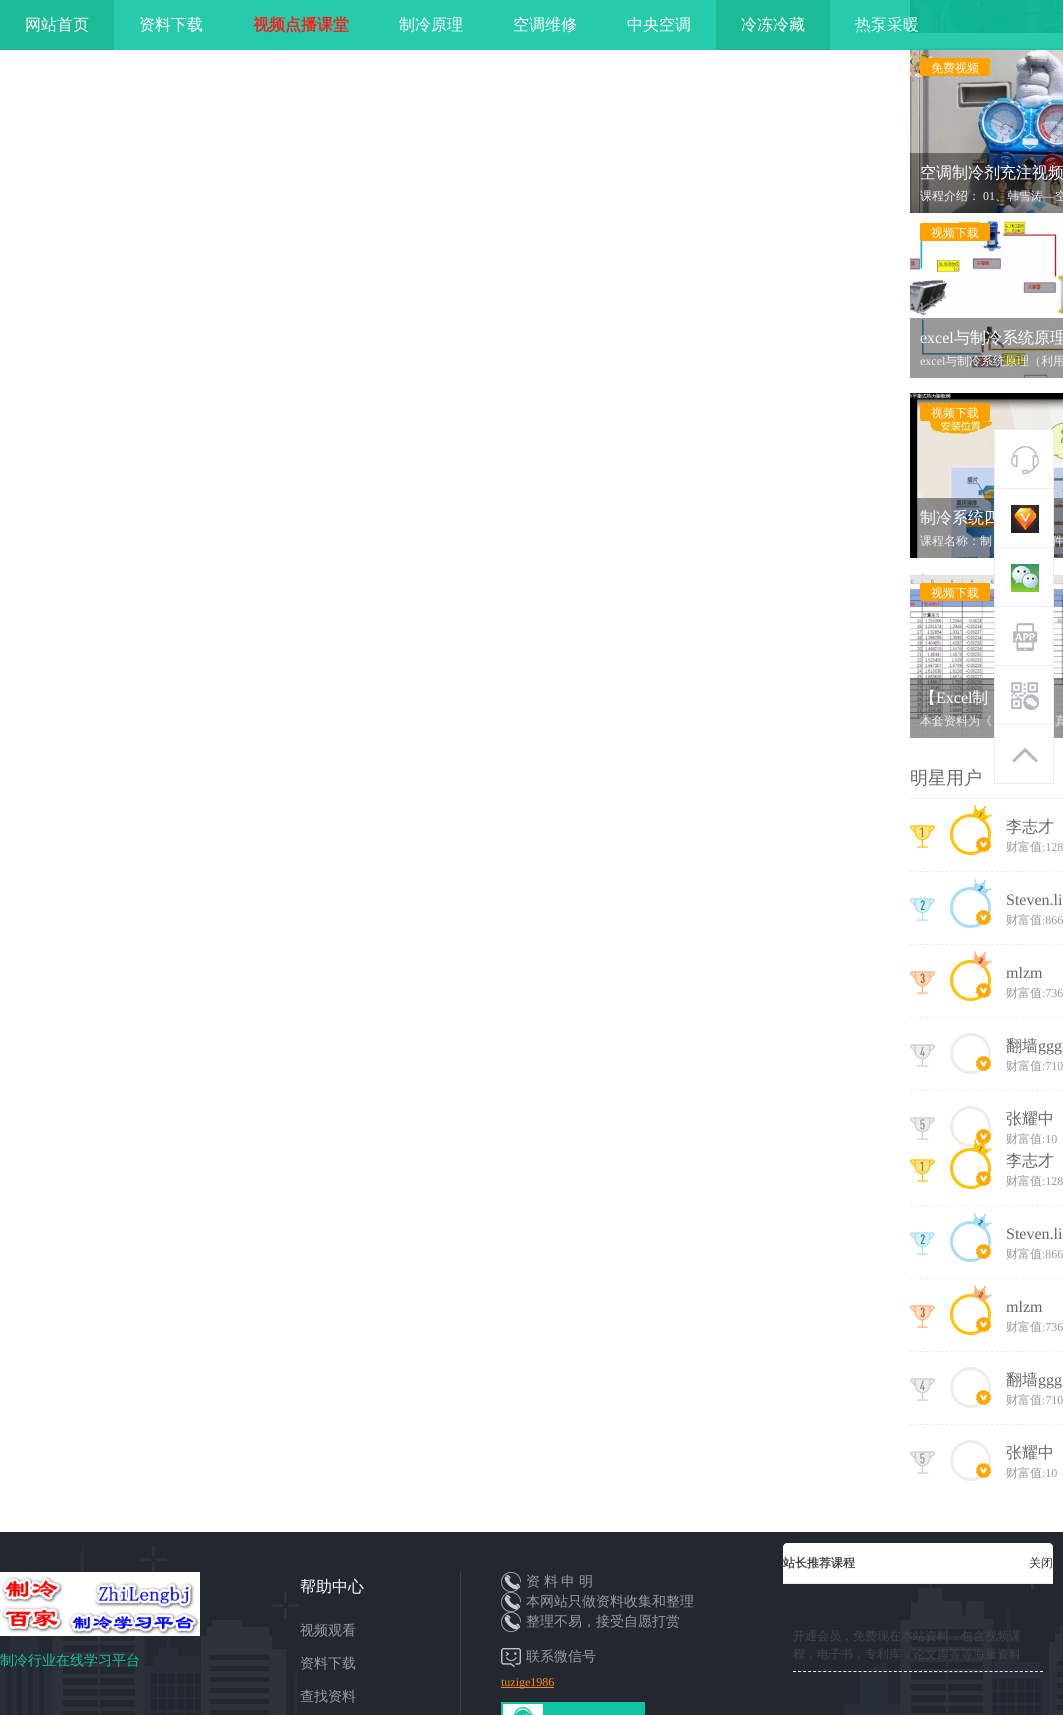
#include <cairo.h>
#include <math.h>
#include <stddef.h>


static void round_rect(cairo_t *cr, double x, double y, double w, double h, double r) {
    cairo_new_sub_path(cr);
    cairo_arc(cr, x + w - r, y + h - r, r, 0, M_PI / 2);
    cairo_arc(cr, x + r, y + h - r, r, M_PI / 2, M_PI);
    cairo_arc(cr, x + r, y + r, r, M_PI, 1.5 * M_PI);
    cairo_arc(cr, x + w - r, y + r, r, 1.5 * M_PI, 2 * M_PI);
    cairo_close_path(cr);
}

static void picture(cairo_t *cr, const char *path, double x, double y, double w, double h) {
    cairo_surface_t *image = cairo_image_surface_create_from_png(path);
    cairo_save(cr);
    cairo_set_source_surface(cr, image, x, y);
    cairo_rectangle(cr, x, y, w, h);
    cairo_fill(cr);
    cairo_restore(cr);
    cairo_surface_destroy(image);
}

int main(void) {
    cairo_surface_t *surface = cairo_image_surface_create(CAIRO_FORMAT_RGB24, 1063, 1715);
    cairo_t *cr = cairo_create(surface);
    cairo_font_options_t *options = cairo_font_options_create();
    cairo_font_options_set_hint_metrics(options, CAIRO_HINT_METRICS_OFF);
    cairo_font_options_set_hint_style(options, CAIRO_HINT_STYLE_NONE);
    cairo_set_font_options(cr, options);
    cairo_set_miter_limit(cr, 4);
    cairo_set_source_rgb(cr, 1, 1, 1);
    cairo_paint(cr);
    picture(cr, "img7.png", 910, 0, 153, 33);
    picture(cr, "img8.png", 910, 48, 153, 165);
    cairo_set_source_rgba(cr, 0.055, 0.773, 0.631, 0.9);
    cairo_rectangle(cr, 114, 0, 949, 50);
    cairo_fill(cr);
    cairo_set_source_rgb(cr, 0.102, 0.733, 0.588);
    cairo_rectangle(cr, 0, 0, 114, 50);
    cairo_fill(cr);
    cairo_select_font_face(cr, "WenQuanYi Zen Hei Medium", CAIRO_FONT_SLANT_NORMAL, CAIRO_FONT_WEIGHT_NORMAL);
    cairo_set_font_size(cr, 16);
    cairo_set_source_rgb(cr, 1, 1, 1);
    cairo_move_to(cr, 25, 30);
    cairo_show_text(cr, "网站首页");
    cairo_move_to(cr, 139, 30);
    cairo_show_text(cr, "资料下载");
    cairo_select_font_face(cr, "WenQuanYi Zen Hei", CAIRO_FONT_SLANT_NORMAL, CAIRO_FONT_WEIGHT_BOLD);
    cairo_set_source_rgb(cr, 1, 0.102, 0.102);
    cairo_move_to(cr, 253, 30);
    cairo_show_text(cr, "视频点播课堂");
    cairo_select_font_face(cr, "WenQuanYi Zen Hei Medium", CAIRO_FONT_SLANT_NORMAL, CAIRO_FONT_WEIGHT_NORMAL);
    cairo_set_source_rgb(cr, 1, 1, 1);
    cairo_move_to(cr, 399, 30);
    cairo_show_text(cr, "制冷原理");
    cairo_move_to(cr, 513, 30);
    cairo_show_text(cr, "空调维修");
    cairo_move_to(cr, 627, 30);
    cairo_show_text(cr, "中央空调");
    cairo_set_source_rgb(cr, 0.102, 0.733, 0.588);
    cairo_rectangle(cr, 716, 0, 114, 50);
    cairo_fill(cr);
    cairo_set_source_rgb(cr, 1, 1, 1);
    cairo_move_to(cr, 741, 30);
    cairo_show_text(cr, "冷冻冷藏");
    cairo_set_source_rgb(cr, 0.914, 0.976, 0.965);
    cairo_move_to(cr, 855, 30);
    cairo_show_text(cr, "热泵采暖");
    picture(cr, "img10.png", 910, 393, 153, 165);
    cairo_set_source_rgb(cr, 1, 1, 1);
    cairo_rectangle(cr, 994.5, 429.5, 59, 59);
    cairo_fill_preserve(cr);
    cairo_set_source_rgb(cr, 0.929, 0.929, 0.929);
    cairo_set_line_width(cr, 1);
    cairo_stroke(cr);
    picture(cr, "img1.png", 1011, 446, 28, 28);
    cairo_set_source_rgba(cr, 0, 0, 0, 0.4);
    cairo_rectangle(cr, 917, 498, 146, 60);
    cairo_fill(cr);
    cairo_set_font_size(cr, 12);
    cairo_set_source_rgb(cr, 0.933, 0.933, 0.933);
    cairo_move_to(cr, 1052, 545);
    cairo_show_text(cr, "件");
    cairo_set_source_rgb(cr, 1, 1, 1);
    cairo_rectangle(cr, 995, 489, 58, 58);
    cairo_fill(cr);
    picture(cr, "img11.png", 910, 573, 153, 165);
    cairo_set_source_rgba(cr, 0, 0, 0, 0.4);
    cairo_rectangle(cr, 910, 678, 153, 60);
    cairo_fill(cr);
    cairo_set_source_rgb(cr, 0.929, 0.929, 0.929);
    cairo_rectangle(cr, 1053, 489, 1, 295);
    cairo_fill(cr);
    cairo_rectangle(cr, 994, 547, 60, 1);
    cairo_fill(cr);
    cairo_set_font_size(cr, 16);
    cairo_set_source_rgb(cr, 1, 1, 1);
    cairo_move_to(cr, 920, 523);
    cairo_show_text(cr, "制冷系统四");
    cairo_set_source_rgb(cr, 0.929, 0.929, 0.929);
    cairo_rectangle(cr, 994, 489, 1, 59);
    cairo_fill(cr);
    picture(cr, "img2.png", 1011, 505, 28, 28);
    cairo_set_source_rgb(cr, 1, 1, 1);
    cairo_rectangle(cr, 995, 548, 58, 58);
    cairo_fill(cr);
    cairo_set_source_rgb(cr, 0.929, 0.929, 0.929);
    cairo_rectangle(cr, 994, 606, 60, 1);
    cairo_fill(cr);
    cairo_rectangle(cr, 994, 548, 1, 59);
    cairo_fill(cr);
    picture(cr, "img3.png", 1011, 564, 28, 28);
    cairo_set_source_rgb(cr, 1, 1, 1);
    cairo_rectangle(cr, 995, 607, 58, 58);
    cairo_fill(cr);
    cairo_set_source_rgb(cr, 0.929, 0.929, 0.929);
    cairo_rectangle(cr, 994, 665, 60, 1);
    cairo_fill(cr);
    cairo_rectangle(cr, 994, 607, 1, 59);
    cairo_fill(cr);
    picture(cr, "img4.png", 1013, 623, 25, 28);
    cairo_set_source_rgb(cr, 1, 1, 1);
    cairo_rectangle(cr, 995, 666, 58, 58);
    cairo_fill(cr);
    cairo_set_source_rgb(cr, 0.929, 0.929, 0.929);
    cairo_rectangle(cr, 994, 724, 60, 1);
    cairo_fill(cr);
    cairo_rectangle(cr, 994, 666, 1, 59);
    cairo_fill(cr);
    picture(cr, "img5.png", 1011, 682, 28, 28);
    cairo_set_source_rgb(cr, 1, 1, 1);
    cairo_rectangle(cr, 995, 725, 58, 13);
    cairo_fill(cr);
    cairo_set_source_rgb(cr, 0.929, 0.929, 0.929);
    cairo_rectangle(cr, 994, 783, 60, 1);
    cairo_fill(cr);
    cairo_rectangle(cr, 994, 725, 1, 59);
    cairo_fill(cr);
    picture(cr, "img6.png", 1012, 747, 26, 16);
    cairo_set_source_rgb(cr, 1, 0.635, 0);
    round_rect(cr, 920, 58, 70, 18, 2);
    cairo_fill(cr);
    cairo_set_font_size(cr, 12);
    cairo_set_source_rgb(cr, 1, 1, 1);
    cairo_move_to(cr, 931, 72);
    cairo_show_text(cr, "免费视频");
    cairo_set_source_rgba(cr, 0, 0, 0, 0.4);
    cairo_rectangle(cr, 910, 153, 153, 60);
    cairo_fill(cr);
    cairo_set_font_size(cr, 16);
    cairo_set_source_rgb(cr, 1, 1, 1);
    cairo_move_to(cr, 920, 178);
    cairo_show_text(cr, "空调制冷剂充注视频");
    cairo_set_font_size(cr, 12);
    cairo_set_source_rgb(cr, 0.933, 0.933, 0.933);
    cairo_move_to(cr, 920, 200);
    cairo_show_text(cr, "课程介绍：");
    cairo_select_font_face(cr, "Liberation Serif", CAIRO_FONT_SLANT_NORMAL, CAIRO_FONT_WEIGHT_NORMAL);
    cairo_move_to(cr, 983, 200);
    cairo_show_text(cr, "01");
    cairo_select_font_face(cr, "WenQuanYi Zen Hei Medium", CAIRO_FONT_SLANT_NORMAL, CAIRO_FONT_WEIGHT_NORMAL);
    cairo_move_to(cr, 995, 200);
    cairo_show_text(cr, "、韩雪涛");
    cairo_select_font_face(cr, "Liberation Serif", CAIRO_FONT_SLANT_NORMAL, CAIRO_FONT_WEIGHT_NORMAL);
    cairo_move_to(cr, 1043, 200);
    cairo_show_text(cr, "—");
    cairo_select_font_face(cr, "WenQuanYi Zen Hei Medium", CAIRO_FONT_SLANT_NORMAL, CAIRO_FONT_WEIGHT_NORMAL);
    cairo_move_to(cr, 1055, 200);
    cairo_show_text(cr, "空");
    picture(cr, "img9.png", 910, 213, 153, 165);
    cairo_set_source_rgb(cr, 1, 0.635, 0);
    round_rect(cr, 920, 223, 70, 18, 2);
    cairo_fill(cr);
    cairo_set_source_rgb(cr, 1, 1, 1);
    cairo_move_to(cr, 931, 237);
    cairo_show_text(cr, "视频下载");
    cairo_set_source_rgba(cr, 0, 0, 0, 0.4);
    cairo_rectangle(cr, 910, 318, 153, 60);
    cairo_fill(cr);
    cairo_select_font_face(cr, "Liberation Serif", CAIRO_FONT_SLANT_NORMAL, CAIRO_FONT_WEIGHT_NORMAL);
    cairo_set_font_size(cr, 16);
    cairo_set_source_rgb(cr, 1, 1, 1);
    cairo_move_to(cr, 920, 343);
    cairo_show_text(cr, "excel");
    cairo_select_font_face(cr, "WenQuanYi Zen Hei Medium", CAIRO_FONT_SLANT_NORMAL, CAIRO_FONT_WEIGHT_NORMAL);
    cairo_move_to(cr, 954, 343);
    cairo_show_text(cr, "与制冷系统原理");
    cairo_select_font_face(cr, "Liberation Serif", CAIRO_FONT_SLANT_NORMAL, CAIRO_FONT_WEIGHT_NORMAL);
    cairo_set_font_size(cr, 12);
    cairo_set_source_rgb(cr, 0.933, 0.933, 0.933);
    cairo_move_to(cr, 920, 365);
    cairo_show_text(cr, "excel");
    cairo_select_font_face(cr, "WenQuanYi Zen Hei Medium", CAIRO_FONT_SLANT_NORMAL, CAIRO_FONT_WEIGHT_NORMAL);
    cairo_move_to(cr, 945, 365);
    cairo_show_text(cr, "与制冷系统原理（利用");
    cairo_set_source_rgb(cr, 1, 0.635, 0);
    round_rect(cr, 920, 403, 70, 18, 2);
    cairo_fill(cr);
    cairo_set_source_rgb(cr, 1, 1, 1);
    cairo_move_to(cr, 931, 417);
    cairo_show_text(cr, "视频下载");
    cairo_set_source_rgb(cr, 0.933, 0.933, 0.933);
    cairo_move_to(cr, 920, 545);
    cairo_show_text(cr, "课程名称：制");
    cairo_set_source_rgb(cr, 1, 0.635, 0);
    round_rect(cr, 920, 583, 70, 18, 2);
    cairo_fill(cr);
    cairo_set_source_rgb(cr, 1, 1, 1);
    cairo_move_to(cr, 931, 597);
    cairo_show_text(cr, "视频下载");
    cairo_set_font_size(cr, 16);
    cairo_move_to(cr, 920, 703);
    cairo_show_text(cr, "【");
    cairo_select_font_face(cr, "Liberation Serif", CAIRO_FONT_SLANT_NORMAL, CAIRO_FONT_WEIGHT_NORMAL);
    cairo_move_to(cr, 936, 703);
    cairo_show_text(cr, "Excel");
    cairo_select_font_face(cr, "WenQuanYi Zen Hei Medium", CAIRO_FONT_SLANT_NORMAL, CAIRO_FONT_WEIGHT_NORMAL);
    cairo_move_to(cr, 972, 703);
    cairo_show_text(cr, "制");
    cairo_set_font_size(cr, 12);
    cairo_set_source_rgb(cr, 0.933, 0.933, 0.933);
    cairo_move_to(cr, 920, 725);
    cairo_show_text(cr, "本套资料为《");
    cairo_move_to(cr, 1055, 725);
    cairo_show_text(cr, "真");
    cairo_set_source_rgb(cr, 0.929, 0.929, 0.929);
    cairo_rectangle(cr, 910, 798, 153, 1);
    cairo_fill(cr);
    cairo_set_font_size(cr, 18);
    cairo_set_source_rgb(cr, 0.4, 0.4, 0.4);
    cairo_move_to(cr, 910, 784);
    cairo_show_text(cr, "明星用户");
    cairo_new_path(cr);
    cairo_move_to(cr, 910, 871.5);
    cairo_line_to(cr, 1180, 871.5);
    cairo_set_source_rgb(cr, 0.929, 0.929, 0.929);
    cairo_set_dash(cr, (double[]){3, 2.04}, 2, 0);
    cairo_stroke(cr);
    picture(cr, "img12.png", 910, 825, 25, 23);
    cairo_arc(cr, 970.5, 834.5, 19, 0, 2 * M_PI);
    cairo_set_source_rgb(cr, 1, 0.761, 0);
    cairo_set_line_width(cr, 3);
    cairo_set_dash(cr, NULL, 0, 0);
    cairo_stroke(cr);
    picture(cr, "img13.png", 973, 805, 19, 18);
    picture(cr, "img14.png", 976, 837, 15, 15);
    cairo_set_font_size(cr, 16);
    cairo_set_source_rgb(cr, 0.4, 0.4, 0.4);
    cairo_move_to(cr, 1006, 832);
    cairo_show_text(cr, "李志才");
    cairo_set_font_size(cr, 12);
    cairo_set_source_rgb(cr, 0.6, 0.6, 0.6);
    cairo_move_to(cr, 1006, 851);
    cairo_show_text(cr, "财富值");
    cairo_select_font_face(cr, "Liberation Serif", CAIRO_FONT_SLANT_NORMAL, CAIRO_FONT_WEIGHT_NORMAL);
    cairo_move_to(cr, 1042, 851);
    cairo_show_text(cr, ":128");
    cairo_new_path(cr);
    cairo_move_to(cr, 910, 944.5);
    cairo_line_to(cr, 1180, 944.5);
    cairo_set_source_rgb(cr, 0.929, 0.929, 0.929);
    cairo_set_line_width(cr, 1);
    cairo_set_dash(cr, (double[]){3, 2.04}, 2, 0);
    cairo_stroke(cr);
    picture(cr, "img15.png", 910, 898, 25, 23);
    cairo_arc(cr, 970.5, 907.5, 19, 0, 2 * M_PI);
    cairo_set_source_rgb(cr, 0.655, 0.871, 0.961);
    cairo_set_line_width(cr, 3);
    cairo_set_dash(cr, NULL, 0, 0);
    cairo_stroke(cr);
    picture(cr, "img16.png", 972, 879, 20, 18);
    picture(cr, "img17.png", 976, 910, 15, 15);
    cairo_set_font_size(cr, 16);
    cairo_set_source_rgb(cr, 0.4, 0.4, 0.4);
    cairo_move_to(cr, 1006, 905);
    cairo_show_text(cr, "Steven.li");
    cairo_select_font_face(cr, "WenQuanYi Zen Hei Medium", CAIRO_FONT_SLANT_NORMAL, CAIRO_FONT_WEIGHT_NORMAL);
    cairo_set_font_size(cr, 12);
    cairo_set_source_rgb(cr, 0.6, 0.6, 0.6);
    cairo_move_to(cr, 1006, 924);
    cairo_show_text(cr, "财富值");
    cairo_select_font_face(cr, "Liberation Serif", CAIRO_FONT_SLANT_NORMAL, CAIRO_FONT_WEIGHT_NORMAL);
    cairo_move_to(cr, 1042, 924);
    cairo_show_text(cr, ":866");
    cairo_new_path(cr);
    cairo_move_to(cr, 910, 1017.5);
    cairo_line_to(cr, 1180, 1017.5);
    cairo_set_source_rgb(cr, 0.929, 0.929, 0.929);
    cairo_set_line_width(cr, 1);
    cairo_set_dash(cr, (double[]){3, 2.04}, 2, 0);
    cairo_stroke(cr);
    picture(cr, "img18.png", 910, 971, 25, 23);
    cairo_arc(cr, 970.5, 980.5, 19, 0, 2 * M_PI);
    cairo_set_source_rgb(cr, 1, 0.761, 0);
    cairo_set_line_width(cr, 3);
    cairo_set_dash(cr, NULL, 0, 0);
    cairo_stroke(cr);
    picture(cr, "img19.png", 972, 951, 20, 18);
    picture(cr, "img14.png", 976, 983, 15, 15);
    cairo_set_font_size(cr, 16);
    cairo_set_source_rgb(cr, 0.4, 0.4, 0.4);
    cairo_move_to(cr, 1006, 978);
    cairo_show_text(cr, "mlzm");
    cairo_select_font_face(cr, "WenQuanYi Zen Hei Medium", CAIRO_FONT_SLANT_NORMAL, CAIRO_FONT_WEIGHT_NORMAL);
    cairo_set_font_size(cr, 12);
    cairo_set_source_rgb(cr, 0.6, 0.6, 0.6);
    cairo_move_to(cr, 1006, 997);
    cairo_show_text(cr, "财富值");
    cairo_select_font_face(cr, "Liberation Serif", CAIRO_FONT_SLANT_NORMAL, CAIRO_FONT_WEIGHT_NORMAL);
    cairo_move_to(cr, 1042, 997);
    cairo_show_text(cr, ":736");
    cairo_new_path(cr);
    cairo_move_to(cr, 910, 1090.5);
    cairo_line_to(cr, 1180, 1090.5);
    cairo_set_source_rgb(cr, 0.929, 0.929, 0.929);
    cairo_set_line_width(cr, 1);
    cairo_set_dash(cr, (double[]){3, 2.04}, 2, 0);
    cairo_stroke(cr);
    picture(cr, "img20.png", 910, 1044, 25, 23);
    cairo_arc(cr, 970.5, 1053.5, 19, 0, 2 * M_PI);
    cairo_set_line_width(cr, 3);
    cairo_set_dash(cr, NULL, 0, 0);
    cairo_stroke(cr);
    picture(cr, "img21.png", 976, 1056, 15, 15);
    cairo_select_font_face(cr, "WenQuanYi Zen Hei Medium", CAIRO_FONT_SLANT_NORMAL, CAIRO_FONT_WEIGHT_NORMAL);
    cairo_set_font_size(cr, 16);
    cairo_set_source_rgb(cr, 0.4, 0.4, 0.4);
    cairo_move_to(cr, 1006, 1051);
    cairo_show_text(cr, "翻墙");
    cairo_select_font_face(cr, "Liberation Serif", CAIRO_FONT_SLANT_NORMAL, CAIRO_FONT_WEIGHT_NORMAL);
    cairo_move_to(cr, 1038, 1051);
    cairo_show_text(cr, "ggg");
    cairo_select_font_face(cr, "WenQuanYi Zen Hei Medium", CAIRO_FONT_SLANT_NORMAL, CAIRO_FONT_WEIGHT_NORMAL);
    cairo_set_font_size(cr, 12);
    cairo_set_source_rgb(cr, 0.6, 0.6, 0.6);
    cairo_move_to(cr, 1006, 1070);
    cairo_show_text(cr, "财富值");
    cairo_select_font_face(cr, "Liberation Serif", CAIRO_FONT_SLANT_NORMAL, CAIRO_FONT_WEIGHT_NORMAL);
    cairo_move_to(cr, 1042, 1070);
    cairo_show_text(cr, ":710");
    picture(cr, "img22.png", 910, 1117, 25, 23);
    cairo_arc(cr, 970.5, 1126.5, 19, 0, 2 * M_PI);
    cairo_set_source_rgb(cr, 0.929, 0.929, 0.929);
    cairo_stroke(cr);
    picture(cr, "img21.png", 976, 1129, 15, 15);
    cairo_select_font_face(cr, "WenQuanYi Zen Hei Medium", CAIRO_FONT_SLANT_NORMAL, CAIRO_FONT_WEIGHT_NORMAL);
    cairo_set_font_size(cr, 16);
    cairo_set_source_rgb(cr, 0.4, 0.4, 0.4);
    cairo_move_to(cr, 1006, 1124);
    cairo_show_text(cr, "张耀中");
    cairo_set_font_size(cr, 12);
    cairo_set_source_rgb(cr, 0.6, 0.6, 0.6);
    cairo_move_to(cr, 1006, 1143);
    cairo_show_text(cr, "财富值");
    cairo_select_font_face(cr, "Liberation Serif", CAIRO_FONT_SLANT_NORMAL, CAIRO_FONT_WEIGHT_NORMAL);
    cairo_move_to(cr, 1042, 1143);
    cairo_show_text(cr, ":10");
    cairo_new_path(cr);
    cairo_move_to(cr, 910, 1205.5);
    cairo_line_to(cr, 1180, 1205.5);
    cairo_set_source_rgb(cr, 0.929, 0.929, 0.929);
    cairo_set_line_width(cr, 1);
    cairo_set_dash(cr, (double[]){3, 2.04}, 2, 0);
    cairo_stroke(cr);
    picture(cr, "img12.png", 910, 1159, 25, 23);
    cairo_arc(cr, 970.5, 1168.5, 19, 0, 2 * M_PI);
    cairo_set_source_rgb(cr, 1, 0.761, 0);
    cairo_set_line_width(cr, 3);
    cairo_set_dash(cr, NULL, 0, 0);
    cairo_stroke(cr);
    picture(cr, "img23.png", 973, 1139, 19, 18);
    picture(cr, "img14.png", 976, 1171, 15, 15);
    cairo_select_font_face(cr, "WenQuanYi Zen Hei Medium", CAIRO_FONT_SLANT_NORMAL, CAIRO_FONT_WEIGHT_NORMAL);
    cairo_set_font_size(cr, 16);
    cairo_set_source_rgb(cr, 0.4, 0.4, 0.4);
    cairo_move_to(cr, 1006, 1166);
    cairo_show_text(cr, "李志才");
    cairo_set_font_size(cr, 12);
    cairo_set_source_rgb(cr, 0.6, 0.6, 0.6);
    cairo_move_to(cr, 1006, 1185);
    cairo_show_text(cr, "财富值");
    cairo_select_font_face(cr, "Liberation Serif", CAIRO_FONT_SLANT_NORMAL, CAIRO_FONT_WEIGHT_NORMAL);
    cairo_move_to(cr, 1042, 1185);
    cairo_show_text(cr, ":128");
    cairo_new_path(cr);
    cairo_move_to(cr, 910, 1278.5);
    cairo_line_to(cr, 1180, 1278.5);
    cairo_set_source_rgb(cr, 0.929, 0.929, 0.929);
    cairo_set_line_width(cr, 1);
    cairo_set_dash(cr, (double[]){3, 2.04}, 2, 0);
    cairo_stroke(cr);
    picture(cr, "img15.png", 910, 1232, 25, 23);
    cairo_arc(cr, 970.5, 1241.5, 19, 0, 2 * M_PI);
    cairo_set_source_rgb(cr, 0.655, 0.871, 0.961);
    cairo_set_line_width(cr, 3);
    cairo_set_dash(cr, NULL, 0, 0);
    cairo_stroke(cr);
    picture(cr, "img16.png", 972, 1213, 20, 18);
    picture(cr, "img17.png", 976, 1244, 15, 15);
    cairo_set_font_size(cr, 16);
    cairo_set_source_rgb(cr, 0.4, 0.4, 0.4);
    cairo_move_to(cr, 1006, 1239);
    cairo_show_text(cr, "Steven.li");
    cairo_select_font_face(cr, "WenQuanYi Zen Hei Medium", CAIRO_FONT_SLANT_NORMAL, CAIRO_FONT_WEIGHT_NORMAL);
    cairo_set_font_size(cr, 12);
    cairo_set_source_rgb(cr, 0.6, 0.6, 0.6);
    cairo_move_to(cr, 1006, 1258);
    cairo_show_text(cr, "财富值");
    cairo_select_font_face(cr, "Liberation Serif", CAIRO_FONT_SLANT_NORMAL, CAIRO_FONT_WEIGHT_NORMAL);
    cairo_move_to(cr, 1042, 1258);
    cairo_show_text(cr, ":866");
    cairo_new_path(cr);
    cairo_move_to(cr, 910, 1351.5);
    cairo_line_to(cr, 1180, 1351.5);
    cairo_set_source_rgb(cr, 0.929, 0.929, 0.929);
    cairo_set_line_width(cr, 1);
    cairo_set_dash(cr, (double[]){3, 2.04}, 2, 0);
    cairo_stroke(cr);
    picture(cr, "img18.png", 910, 1305, 25, 23);
    cairo_arc(cr, 970.5, 1314.5, 19, 0, 2 * M_PI);
    cairo_set_source_rgb(cr, 1, 0.761, 0);
    cairo_set_line_width(cr, 3);
    cairo_set_dash(cr, NULL, 0, 0);
    cairo_stroke(cr);
    picture(cr, "img19.png", 972, 1285, 20, 18);
    picture(cr, "img14.png", 976, 1317, 15, 15);
    cairo_set_font_size(cr, 16);
    cairo_set_source_rgb(cr, 0.4, 0.4, 0.4);
    cairo_move_to(cr, 1006, 1312);
    cairo_show_text(cr, "mlzm");
    cairo_select_font_face(cr, "WenQuanYi Zen Hei Medium", CAIRO_FONT_SLANT_NORMAL, CAIRO_FONT_WEIGHT_NORMAL);
    cairo_set_font_size(cr, 12);
    cairo_set_source_rgb(cr, 0.6, 0.6, 0.6);
    cairo_move_to(cr, 1006, 1331);
    cairo_show_text(cr, "财富值");
    cairo_select_font_face(cr, "Liberation Serif", CAIRO_FONT_SLANT_NORMAL, CAIRO_FONT_WEIGHT_NORMAL);
    cairo_move_to(cr, 1042, 1331);
    cairo_show_text(cr, ":736");
    cairo_new_path(cr);
    cairo_move_to(cr, 910, 1424.5);
    cairo_line_to(cr, 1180, 1424.5);
    cairo_set_source_rgb(cr, 0.929, 0.929, 0.929);
    cairo_set_line_width(cr, 1);
    cairo_set_dash(cr, (double[]){3, 2.04}, 2, 0);
    cairo_stroke(cr);
    picture(cr, "img20.png", 910, 1378, 25, 23);
    cairo_arc(cr, 970.5, 1387.5, 19, 0, 2 * M_PI);
    cairo_set_line_width(cr, 3);
    cairo_set_dash(cr, NULL, 0, 0);
    cairo_stroke(cr);
    picture(cr, "img21.png", 976, 1390, 15, 15);
    cairo_select_font_face(cr, "WenQuanYi Zen Hei Medium", CAIRO_FONT_SLANT_NORMAL, CAIRO_FONT_WEIGHT_NORMAL);
    cairo_set_font_size(cr, 16);
    cairo_set_source_rgb(cr, 0.4, 0.4, 0.4);
    cairo_move_to(cr, 1006, 1385);
    cairo_show_text(cr, "翻墙");
    cairo_select_font_face(cr, "Liberation Serif", CAIRO_FONT_SLANT_NORMAL, CAIRO_FONT_WEIGHT_NORMAL);
    cairo_move_to(cr, 1038, 1385);
    cairo_show_text(cr, "ggg");
    cairo_select_font_face(cr, "WenQuanYi Zen Hei Medium", CAIRO_FONT_SLANT_NORMAL, CAIRO_FONT_WEIGHT_NORMAL);
    cairo_set_font_size(cr, 12);
    cairo_set_source_rgb(cr, 0.6, 0.6, 0.6);
    cairo_move_to(cr, 1006, 1404);
    cairo_show_text(cr, "财富值");
    cairo_select_font_face(cr, "Liberation Serif", CAIRO_FONT_SLANT_NORMAL, CAIRO_FONT_WEIGHT_NORMAL);
    cairo_move_to(cr, 1042, 1404);
    cairo_show_text(cr, ":710");
    picture(cr, "img22.png", 910, 1451, 25, 23);
    cairo_arc(cr, 970.5, 1460.5, 19, 0, 2 * M_PI);
    cairo_set_source_rgb(cr, 0.929, 0.929, 0.929);
    cairo_stroke(cr);
    picture(cr, "img21.png", 976, 1463, 15, 15);
    cairo_select_font_face(cr, "WenQuanYi Zen Hei Medium", CAIRO_FONT_SLANT_NORMAL, CAIRO_FONT_WEIGHT_NORMAL);
    cairo_set_font_size(cr, 16);
    cairo_set_source_rgb(cr, 0.4, 0.4, 0.4);
    cairo_move_to(cr, 1006, 1458);
    cairo_show_text(cr, "张耀中");
    cairo_set_font_size(cr, 12);
    cairo_set_source_rgb(cr, 0.6, 0.6, 0.6);
    cairo_move_to(cr, 1006, 1477);
    cairo_show_text(cr, "财富值");
    cairo_select_font_face(cr, "Liberation Serif", CAIRO_FONT_SLANT_NORMAL, CAIRO_FONT_WEIGHT_NORMAL);
    cairo_move_to(cr, 1042, 1477);
    cairo_show_text(cr, ":10");
    cairo_set_source_rgb(cr, 0.137, 0.157, 0.188);
    cairo_rectangle(cr, 0, 1532, 1063, 183);
    cairo_fill(cr);
    picture(cr, "img24.png", 0, 1544, 1063, 171);
    picture(cr, "img25.png", 0, 1572, 200, 64);
    cairo_select_font_face(cr, "WenQuanYi Zen Hei Medium", CAIRO_FONT_SLANT_NORMAL, CAIRO_FONT_WEIGHT_NORMAL);
    cairo_set_font_size(cr, 14);
    cairo_set_source_rgb(cr, 0.055, 0.773, 0.631);
    cairo_move_to(cr, 0, 1665);
    cairo_show_text(cr, "制冷行业在线学习平台");
    cairo_set_font_size(cr, 16);
    cairo_set_source_rgb(cr, 1, 1, 1);
    cairo_move_to(cr, 300, 1592);
    cairo_show_text(cr, "帮助中心");
    cairo_set_font_size(cr, 14);
    cairo_set_source_rgb(cr, 0.6, 0.6, 0.6);
    cairo_move_to(cr, 300, 1635);
    cairo_show_text(cr, "视频观看");
    cairo_move_to(cr, 300, 1668);
    cairo_show_text(cr, "资料下载");
    cairo_move_to(cr, 300, 1701);
    cairo_show_text(cr, "查找资料");
    cairo_set_source_rgb(cr, 0.267, 0.267, 0.267);
    cairo_rectangle(cr, 460, 1572, 1, 143);
    cairo_fill(cr);
    picture(cr, "img26.png", 501, 1572, 20, 20);
    cairo_set_source_rgb(cr, 0.6, 0.6, 0.6);
    cairo_move_to(cr, 526, 1586);
    cairo_show_text(cr, "资");
    cairo_move_to(cr, 544, 1586);
    cairo_show_text(cr, "料");
    cairo_move_to(cr, 561, 1586);
    cairo_show_text(cr, "申");
    cairo_move_to(cr, 579, 1586);
    cairo_show_text(cr, "明");
    picture(cr, "img26.png", 501, 1592, 20, 20);
    cairo_move_to(cr, 526, 1606);
    cairo_show_text(cr, "本网站只做资料收集和整理");
    picture(cr, "img26.png", 501, 1612, 20, 20);
    cairo_move_to(cr, 526, 1626);
    cairo_show_text(cr, "整理不易，接受自愿打赏");
    picture(cr, "img27.png", 501, 1648, 20, 19);
    cairo_move_to(cr, 526, 1661);
    cairo_show_text(cr, "联系微信号");
    cairo_set_source_rgb(cr, 0.988, 0.533, 0.098);
    cairo_rectangle(cr, 501, 1687, 53, 1);
    cairo_fill(cr);
    cairo_select_font_face(cr, "Liberation Serif", CAIRO_FONT_SLANT_NORMAL, CAIRO_FONT_WEIGHT_NORMAL);
    cairo_set_font_size(cr, 12);
    cairo_move_to(cr, 501, 1686);
    cairo_show_text(cr, "tuzige1986");
    cairo_rectangle(cr, 502, 1703, 142, 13);
    cairo_set_source_rgb(cr, 0.055, 0.773, 0.631);
    cairo_set_line_width(cr, 2);
    cairo_stroke(cr);
    cairo_set_source_rgb(cr, 1, 1, 1);
    cairo_rectangle(cr, 503, 1704, 40, 11);
    cairo_fill(cr);
    picture(cr, "img28.png", 513, 1707, 20, 8);
    cairo_set_source_rgb(cr, 0.055, 0.773, 0.631);
    cairo_rectangle(cr, 543, 1704, 100, 11);
    cairo_fill(cr);
    cairo_set_source_rgb(cr, 1, 1, 1);
    cairo_new_path(cr);
    cairo_move_to(cr, 787, 1543);
    cairo_line_to(cr, 1049, 1543);
    cairo_curve_to(cr, 1051, 1543, 1053, 1545, 1053, 1547);
    cairo_line_to(cr, 1053, 1584);
    cairo_line_to(cr, 783, 1584);
    cairo_line_to(cr, 783, 1547);
    cairo_curve_to(cr, 783, 1545, 785, 1543, 787, 1543);
    cairo_close_path(cr);
    cairo_fill(cr);
    cairo_set_source_rgb(cr, 0.929, 0.929, 0.929);
    cairo_rectangle(cr, 783, 1583, 270, 1);
    cairo_fill(cr);
    cairo_select_font_face(cr, "WenQuanYi Zen Hei", CAIRO_FONT_SLANT_NORMAL, CAIRO_FONT_WEIGHT_BOLD);
    cairo_set_source_rgb(cr, 0.267, 0.267, 0.267);
    cairo_move_to(cr, 783, 1567);
    cairo_show_text(cr, "站长推荐课程");
    cairo_select_font_face(cr, "WenQuanYi Zen Hei Medium", CAIRO_FONT_SLANT_NORMAL, CAIRO_FONT_WEIGHT_NORMAL);
    cairo_set_source_rgb(cr, 0.2, 0.2, 0.2);
    cairo_move_to(cr, 1029, 1567);
    cairo_show_text(cr, "关闭");
    cairo_new_path(cr);
    cairo_move_to(cr, 793, 1671.5);
    cairo_line_to(cr, 1043, 1671.5);
    cairo_set_source_rgb(cr, 0.929, 0.929, 0.929);
    cairo_set_line_width(cr, 1);
    cairo_set_dash(cr, (double[]){3, 2.04}, 2, 0);
    cairo_stroke(cr);
    cairo_set_source_rgb(cr, 0.267, 0.267, 0.267);
    cairo_move_to(cr, 793, 1640);
    cairo_show_text(cr, "开通会员，免费现在本站资料，包含视频课");
    cairo_move_to(cr, 793, 1658);
    cairo_show_text(cr, "程，电子书，专利库，论文库等等海量资料");
    cairo_surface_write_to_png(surface, "page.png");
    cairo_font_options_destroy(options);
    cairo_destroy(cr);
    cairo_surface_destroy(surface);
    return 0;
}
